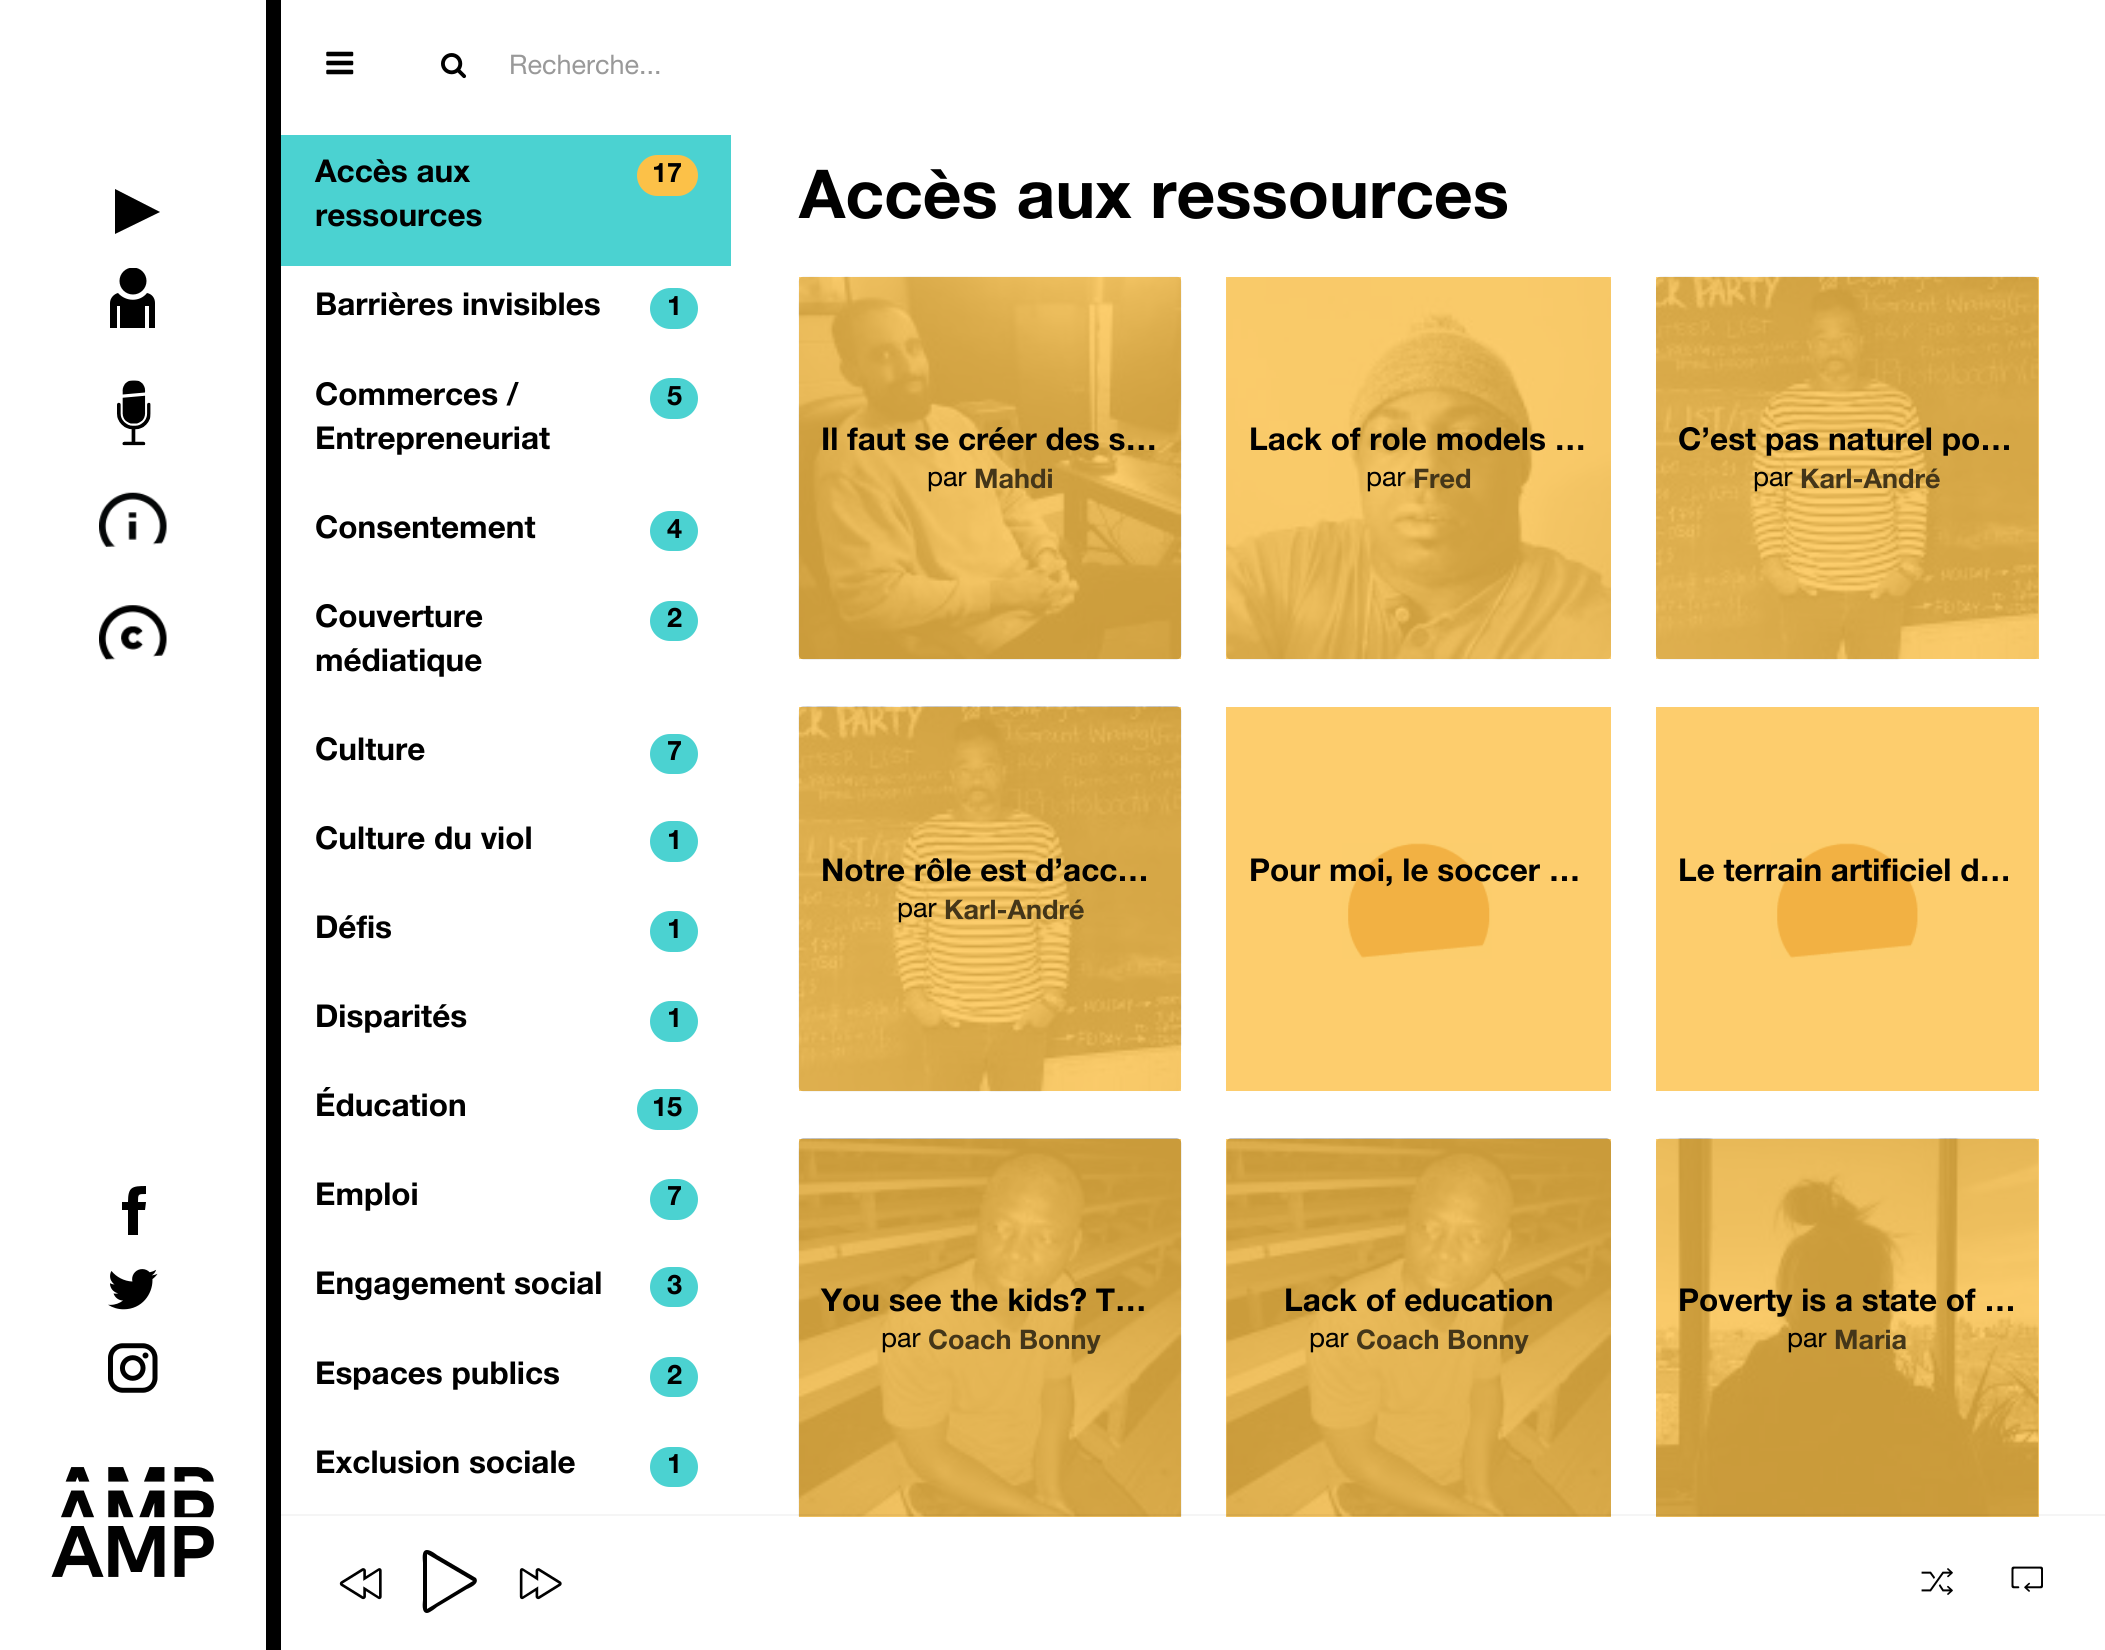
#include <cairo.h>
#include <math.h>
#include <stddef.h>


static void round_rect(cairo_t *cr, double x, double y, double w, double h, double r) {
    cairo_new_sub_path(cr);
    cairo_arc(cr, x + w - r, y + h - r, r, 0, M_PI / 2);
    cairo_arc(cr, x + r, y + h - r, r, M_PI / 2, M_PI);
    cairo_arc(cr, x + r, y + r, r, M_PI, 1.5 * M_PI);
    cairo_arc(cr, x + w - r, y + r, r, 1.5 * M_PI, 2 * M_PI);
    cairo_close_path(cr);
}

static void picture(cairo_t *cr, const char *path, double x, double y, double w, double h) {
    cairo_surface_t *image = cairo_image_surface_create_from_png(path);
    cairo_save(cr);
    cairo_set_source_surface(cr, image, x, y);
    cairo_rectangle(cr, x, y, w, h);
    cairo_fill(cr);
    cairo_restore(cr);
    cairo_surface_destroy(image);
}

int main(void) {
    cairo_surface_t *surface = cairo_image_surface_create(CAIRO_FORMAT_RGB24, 2105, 1650);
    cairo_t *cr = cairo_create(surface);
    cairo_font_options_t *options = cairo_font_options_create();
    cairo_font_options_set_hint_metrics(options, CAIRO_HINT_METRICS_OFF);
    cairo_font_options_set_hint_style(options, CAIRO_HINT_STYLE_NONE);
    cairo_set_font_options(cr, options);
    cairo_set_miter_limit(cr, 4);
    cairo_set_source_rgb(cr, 1, 1, 1);
    cairo_paint(cr);
    cairo_set_source_rgb(cr, 0.992, 0.804, 0.427);
    cairo_rectangle(cr, 1656, 1139, 383, 378);
    cairo_fill(cr);
    cairo_rectangle(cr, 1226, 1139, 385, 378);
    cairo_fill(cr);
    cairo_rectangle(cr, 799, 1139, 382, 378);
    cairo_fill(cr);
    cairo_rectangle(cr, 1656, 707, 383, 384);
    cairo_fill(cr);
    cairo_rectangle(cr, 1226, 707, 385, 384);
    cairo_fill(cr);
    cairo_rectangle(cr, 799, 707, 382, 384);
    cairo_fill(cr);
    cairo_rectangle(cr, 1656, 277, 383, 382);
    cairo_fill(cr);
    cairo_rectangle(cr, 1226, 277, 385, 382);
    cairo_fill(cr);
    cairo_rectangle(cr, 799, 277, 382, 382);
    cairo_fill(cr);
    picture(cr, "img1.png", 326, 51, 28, 24);
    picture(cr, "img2.png", 441, 53, 26, 26);
    cairo_select_font_face(cr, "Helvetica Neue", CAIRO_FONT_SLANT_NORMAL, CAIRO_FONT_WEIGHT_NORMAL);
    cairo_set_font_size(cr, 27);
    cairo_set_source_rgb(cr, 0.6, 0.6, 0.6);
    cairo_move_to(cr, 509, 74);
    cairo_show_text(cr, "Recherche...");
    cairo_set_source_rgb(cr, 0, 0, 0);
    cairo_rectangle(cr, 266, 0, 15, 1650);
    cairo_fill(cr);
    cairo_new_path(cr);
    cairo_move_to(cr, 115, 234);
    cairo_line_to(cr, 115, 189);
    cairo_line_to(cr, 160, 212);
    cairo_close_path(cr);
    cairo_fill(cr);
    cairo_save(cr);
    cairo_rectangle(cr, 110, 268, 45, 61);
    cairo_clip(cr);
    cairo_arc(cr, 133, 281, 13.5, 0, 2 * M_PI);
    cairo_fill(cr);
    cairo_restore(cr);
    cairo_new_path(cr);
    cairo_move_to(cr, 147, 293);
    cairo_curve_to(cr, 140, 302, 126, 302, 118, 293);
    cairo_curve_to(cr, 114, 294, 110, 298, 110, 303);
    cairo_line_to(cr, 110, 328);
    cairo_line_to(cr, 117, 328);
    cairo_line_to(cr, 117, 306);
    cairo_line_to(cr, 120, 306);
    cairo_line_to(cr, 120, 328);
    cairo_line_to(cr, 145, 328);
    cairo_line_to(cr, 145, 306);
    cairo_line_to(cr, 149, 306);
    cairo_line_to(cr, 149, 328);
    cairo_line_to(cr, 155, 328);
    cairo_line_to(cr, 155, 303);
    cairo_curve_to(cr, 155, 298, 152, 294, 147, 293);
    cairo_close_path(cr);
    cairo_fill(cr);
    picture(cr, "img3.png", 117, 380, 34, 66);
    picture(cr, "img4.png", 99, 492, 68, 55);
    picture(cr, "img5.png", 99, 605, 68, 55);
    cairo_new_path(cr);
    cairo_move_to(cr, 138, 1202);
    cairo_curve_to(cr, 138, 1194, 138, 1194, 146, 1194);
    cairo_line_to(cr, 146, 1186);
    cairo_curve_to(cr, 132, 1186, 128, 1187, 128, 1202);
    cairo_line_to(cr, 122, 1202);
    cairo_line_to(cr, 122, 1210);
    cairo_line_to(cr, 128, 1210);
    cairo_line_to(cr, 128, 1235);
    cairo_line_to(cr, 138, 1235);
    cairo_line_to(cr, 138, 1210);
    cairo_line_to(cr, 145, 1210);
    cairo_line_to(cr, 146, 1202);
    cairo_close_path(cr);
    cairo_fill(cr);
    picture(cr, "img6.png", 108, 1269, 50, 41);
    picture(cr, "img7.png", 108, 1343, 50, 50);
    picture(cr, "img8.png", 51, 1467, 163, 110);
    cairo_set_source_rgb(cr, 0.294, 0.824, 0.82);
    cairo_rectangle(cr, 281, 135, 450, 131);
    cairo_fill(cr);
    cairo_select_font_face(cr, "Helvetica Neue", CAIRO_FONT_SLANT_NORMAL, CAIRO_FONT_WEIGHT_BOLD);
    cairo_set_font_size(cr, 31.5);
    cairo_set_source_rgb(cr, 0, 0, 0);
    cairo_move_to(cr, 315, 182);
    cairo_show_text(cr, "Accès aux");
    cairo_set_source_rgb(cr, 0.988, 0.757, 0.282);
    round_rect(cr, 637, 155, 61, 41, 20.5);
    cairo_fill(cr);
    cairo_set_font_size(cr, 27);
    cairo_set_source_rgb(cr, 0, 0, 0);
    cairo_move_to(cr, 652, 182);
    cairo_show_text(cr, "17");
    cairo_set_font_size(cr, 31.5);
    cairo_move_to(cr, 315, 226);
    cairo_show_text(cr, "ressources");
    cairo_move_to(cr, 315, 315);
    cairo_show_text(cr, "Barrières invisibles");
    cairo_set_source_rgb(cr, 0.294, 0.824, 0.82);
    round_rect(cr, 650, 288, 48, 41, 20.5);
    cairo_fill(cr);
    cairo_set_font_size(cr, 27);
    cairo_set_source_rgb(cr, 0, 0, 0);
    cairo_move_to(cr, 667, 315);
    cairo_show_text(cr, "1");
    cairo_set_font_size(cr, 31.5);
    cairo_move_to(cr, 315, 405);
    cairo_show_text(cr, "Commerces /");
    cairo_set_source_rgb(cr, 0.294, 0.824, 0.82);
    round_rect(cr, 650, 378, 48, 41, 20.5);
    cairo_fill(cr);
    cairo_set_font_size(cr, 27);
    cairo_set_source_rgb(cr, 0, 0, 0);
    cairo_move_to(cr, 667, 405);
    cairo_show_text(cr, "5");
    cairo_set_font_size(cr, 31.5);
    cairo_move_to(cr, 315, 449);
    cairo_show_text(cr, "Entrepreneuriat");
    cairo_move_to(cr, 315, 538);
    cairo_show_text(cr, "Consentement");
    cairo_set_source_rgb(cr, 0.294, 0.824, 0.82);
    round_rect(cr, 650, 511, 48, 40, 20);
    cairo_fill(cr);
    cairo_set_font_size(cr, 27);
    cairo_set_source_rgb(cr, 0, 0, 0);
    cairo_move_to(cr, 667, 538);
    cairo_show_text(cr, "4");
    cairo_set_font_size(cr, 31.5);
    cairo_move_to(cr, 315, 627);
    cairo_show_text(cr, "Couverture");
    cairo_set_source_rgb(cr, 0.294, 0.824, 0.82);
    round_rect(cr, 650, 601, 48, 40, 20);
    cairo_fill(cr);
    cairo_set_font_size(cr, 27);
    cairo_set_source_rgb(cr, 0, 0, 0);
    cairo_move_to(cr, 667, 627);
    cairo_show_text(cr, "2");
    cairo_set_font_size(cr, 31.5);
    cairo_move_to(cr, 315, 671);
    cairo_show_text(cr, "médiatique");
    cairo_move_to(cr, 315, 760);
    cairo_show_text(cr, "Culture");
    cairo_set_source_rgb(cr, 0.294, 0.824, 0.82);
    round_rect(cr, 650, 734, 48, 40, 20);
    cairo_fill(cr);
    cairo_set_font_size(cr, 27);
    cairo_set_source_rgb(cr, 0, 0, 0);
    cairo_move_to(cr, 667, 760);
    cairo_show_text(cr, "7");
    cairo_set_font_size(cr, 31.5);
    cairo_move_to(cr, 315, 849);
    cairo_show_text(cr, "Culture du viol");
    cairo_set_source_rgb(cr, 0.294, 0.824, 0.82);
    round_rect(cr, 650, 821, 48, 41, 20.5);
    cairo_fill(cr);
    cairo_set_font_size(cr, 27);
    cairo_set_source_rgb(cr, 0, 0, 0);
    cairo_move_to(cr, 667, 849);
    cairo_show_text(cr, "1");
    cairo_set_font_size(cr, 31.5);
    cairo_move_to(cr, 315, 938);
    cairo_show_text(cr, "Défis");
    cairo_set_source_rgb(cr, 0.294, 0.824, 0.82);
    round_rect(cr, 650, 911, 48, 41, 20.5);
    cairo_fill(cr);
    cairo_set_font_size(cr, 27);
    cairo_set_source_rgb(cr, 0, 0, 0);
    cairo_move_to(cr, 667, 938);
    cairo_show_text(cr, "1");
    cairo_set_font_size(cr, 31.5);
    cairo_move_to(cr, 315, 1027);
    cairo_show_text(cr, "Disparités");
    cairo_set_source_rgb(cr, 0.294, 0.824, 0.82);
    round_rect(cr, 650, 1001, 48, 41, 20.5);
    cairo_fill(cr);
    cairo_set_font_size(cr, 27);
    cairo_set_source_rgb(cr, 0, 0, 0);
    cairo_move_to(cr, 667, 1027);
    cairo_show_text(cr, "1");
    cairo_set_font_size(cr, 31.5);
    cairo_move_to(cr, 315, 1116);
    cairo_show_text(cr, "Éducation");
    cairo_set_source_rgb(cr, 0.294, 0.824, 0.82);
    round_rect(cr, 637, 1089, 61, 41, 20.5);
    cairo_fill(cr);
    cairo_set_font_size(cr, 27);
    cairo_set_source_rgb(cr, 0, 0, 0);
    cairo_move_to(cr, 652, 1116);
    cairo_show_text(cr, "15");
    cairo_set_font_size(cr, 31.5);
    cairo_move_to(cr, 315, 1205);
    cairo_show_text(cr, "Emploi");
    cairo_set_source_rgb(cr, 0.294, 0.824, 0.82);
    round_rect(cr, 650, 1179, 48, 41, 20.5);
    cairo_fill(cr);
    cairo_set_font_size(cr, 27);
    cairo_set_source_rgb(cr, 0, 0, 0);
    cairo_move_to(cr, 667, 1205);
    cairo_show_text(cr, "7");
    cairo_set_font_size(cr, 31.5);
    cairo_move_to(cr, 315, 1294);
    cairo_show_text(cr, "Engagement social");
    cairo_set_source_rgb(cr, 0.294, 0.824, 0.82);
    round_rect(cr, 650, 1267, 48, 40, 20);
    cairo_fill(cr);
    cairo_set_font_size(cr, 27);
    cairo_set_source_rgb(cr, 0, 0, 0);
    cairo_move_to(cr, 667, 1294);
    cairo_show_text(cr, "3");
    cairo_set_font_size(cr, 31.5);
    cairo_move_to(cr, 315, 1384);
    cairo_show_text(cr, "Espaces publics");
    cairo_set_source_rgb(cr, 0.294, 0.824, 0.82);
    round_rect(cr, 650, 1357, 48, 40, 20);
    cairo_fill(cr);
    cairo_set_font_size(cr, 27);
    cairo_set_source_rgb(cr, 0, 0, 0);
    cairo_move_to(cr, 667, 1384);
    cairo_show_text(cr, "2");
    cairo_set_font_size(cr, 31.5);
    cairo_move_to(cr, 315, 1473);
    cairo_show_text(cr, "Exclusion sociale");
    cairo_set_source_rgb(cr, 0.294, 0.824, 0.82);
    round_rect(cr, 650, 1447, 48, 40, 20);
    cairo_fill(cr);
    cairo_set_font_size(cr, 27);
    cairo_set_source_rgb(cr, 0, 0, 0);
    cairo_move_to(cr, 667, 1473);
    cairo_show_text(cr, "1");
    cairo_set_font_size(cr, 67.5);
    cairo_move_to(cr, 799, 218);
    cairo_show_text(cr, "Accès aux ressources");
    picture(cr, "img9.png", 798, 276, 384, 384);
    cairo_set_font_size(cr, 31.5);
    cairo_move_to(cr, 821, 450);
    cairo_show_text(cr, "Il faut se créer des s…");
    cairo_select_font_face(cr, "Helvetica Neue", CAIRO_FONT_SLANT_NORMAL, CAIRO_FONT_WEIGHT_NORMAL);
    cairo_set_font_size(cr, 27);
    cairo_move_to(cr, 927, 486);
    cairo_show_text(cr, "par");
    cairo_select_font_face(cr, "Helvetica Neue", CAIRO_FONT_SLANT_NORMAL, CAIRO_FONT_WEIGHT_BOLD);
    cairo_set_source_rgb(cr, 0.267, 0.212, 0.098);
    cairo_move_to(cr, 974, 488);
    cairo_show_text(cr, "Mahdi");
    picture(cr, "img10.png", 1226, 277, 385, 383);
    cairo_set_font_size(cr, 31.5);
    cairo_set_source_rgb(cr, 0, 0, 0);
    cairo_move_to(cr, 1249, 450);
    cairo_show_text(cr, "Lack of role models …");
    cairo_select_font_face(cr, "Helvetica Neue", CAIRO_FONT_SLANT_NORMAL, CAIRO_FONT_WEIGHT_NORMAL);
    cairo_set_font_size(cr, 27);
    cairo_move_to(cr, 1366, 486);
    cairo_show_text(cr, "par");
    cairo_select_font_face(cr, "Helvetica Neue", CAIRO_FONT_SLANT_NORMAL, CAIRO_FONT_WEIGHT_BOLD);
    cairo_set_source_rgb(cr, 0.267, 0.212, 0.098);
    cairo_move_to(cr, 1413, 488);
    cairo_show_text(cr, "Fred");
    picture(cr, "img11.png", 1656, 276, 383, 384);
    cairo_set_font_size(cr, 31.5);
    cairo_set_source_rgb(cr, 0, 0, 0);
    cairo_move_to(cr, 1678, 450);
    cairo_show_text(cr, "C’est pas naturel po…");
    cairo_select_font_face(cr, "Helvetica Neue", CAIRO_FONT_SLANT_NORMAL, CAIRO_FONT_WEIGHT_NORMAL);
    cairo_set_font_size(cr, 27);
    cairo_move_to(cr, 1753, 486);
    cairo_show_text(cr, "par");
    cairo_select_font_face(cr, "Helvetica Neue", CAIRO_FONT_SLANT_NORMAL, CAIRO_FONT_WEIGHT_BOLD);
    cairo_set_source_rgb(cr, 0.267, 0.212, 0.098);
    cairo_move_to(cr, 1800, 488);
    cairo_show_text(cr, "Karl-André");
    picture(cr, "img12.png", 798, 706, 384, 386);
    cairo_set_font_size(cr, 31.5);
    cairo_set_source_rgb(cr, 0, 0, 0);
    cairo_move_to(cr, 821, 881);
    cairo_show_text(cr, "Notre rôle est d’acc…");
    cairo_select_font_face(cr, "Helvetica Neue", CAIRO_FONT_SLANT_NORMAL, CAIRO_FONT_WEIGHT_NORMAL);
    cairo_set_font_size(cr, 27);
    cairo_move_to(cr, 897, 917);
    cairo_show_text(cr, "par");
    cairo_select_font_face(cr, "Helvetica Neue", CAIRO_FONT_SLANT_NORMAL, CAIRO_FONT_WEIGHT_BOLD);
    cairo_set_source_rgb(cr, 0.267, 0.212, 0.098);
    cairo_move_to(cr, 944, 919);
    cairo_show_text(cr, "Karl-André");
    picture(cr, "img13.png", 1342, 843, 150, 116);
    cairo_set_font_size(cr, 31.5);
    cairo_set_source_rgb(cr, 0, 0, 0);
    cairo_move_to(cr, 1249, 881);
    cairo_show_text(cr, "Pour moi, le soccer …");
    picture(cr, "img14.png", 1771, 843, 149, 116);
    cairo_move_to(cr, 1678, 881);
    cairo_show_text(cr, "Le terrain artificiel d…");
    picture(cr, "img15.png", 798, 1138, 384, 379);
    cairo_move_to(cr, 821, 1311);
    cairo_show_text(cr, "You see the kids? T…");
    cairo_select_font_face(cr, "Helvetica Neue", CAIRO_FONT_SLANT_NORMAL, CAIRO_FONT_WEIGHT_NORMAL);
    cairo_set_font_size(cr, 27);
    cairo_move_to(cr, 881, 1347);
    cairo_show_text(cr, "par");
    cairo_select_font_face(cr, "Helvetica Neue", CAIRO_FONT_SLANT_NORMAL, CAIRO_FONT_WEIGHT_BOLD);
    cairo_set_source_rgb(cr, 0.267, 0.212, 0.098);
    cairo_move_to(cr, 928, 1349);
    cairo_show_text(cr, "Coach Bonny");
    picture(cr, "img16.png", 1226, 1138, 385, 379);
    cairo_set_font_size(cr, 31.5);
    cairo_set_source_rgb(cr, 0, 0, 0);
    cairo_move_to(cr, 1284, 1311);
    cairo_show_text(cr, "Lack of education");
    cairo_select_font_face(cr, "Helvetica Neue", CAIRO_FONT_SLANT_NORMAL, CAIRO_FONT_WEIGHT_NORMAL);
    cairo_set_font_size(cr, 27);
    cairo_move_to(cr, 1309, 1347);
    cairo_show_text(cr, "par");
    cairo_select_font_face(cr, "Helvetica Neue", CAIRO_FONT_SLANT_NORMAL, CAIRO_FONT_WEIGHT_BOLD);
    cairo_set_source_rgb(cr, 0.267, 0.212, 0.098);
    cairo_move_to(cr, 1356, 1349);
    cairo_show_text(cr, "Coach Bonny");
    picture(cr, "img17.png", 1656, 1138, 383, 379);
    cairo_set_font_size(cr, 31.5);
    cairo_set_source_rgb(cr, 0, 0, 0);
    cairo_move_to(cr, 1678, 1311);
    cairo_show_text(cr, "Poverty is a state of …");
    cairo_select_font_face(cr, "Helvetica Neue", CAIRO_FONT_SLANT_NORMAL, CAIRO_FONT_WEIGHT_NORMAL);
    cairo_set_font_size(cr, 27);
    cairo_move_to(cr, 1787, 1347);
    cairo_show_text(cr, "par");
    cairo_select_font_face(cr, "Helvetica Neue", CAIRO_FONT_SLANT_NORMAL, CAIRO_FONT_WEIGHT_BOLD);
    cairo_set_source_rgb(cr, 0.267, 0.212, 0.098);
    cairo_move_to(cr, 1834, 1349);
    cairo_show_text(cr, "Maria");
    cairo_set_source_rgba(cr, 0, 0, 0, 0.04);
    cairo_new_path(cr);
    cairo_move_to(cr, 281, 1514);
    cairo_line_to(cr, 281, 1649);
    cairo_line_to(cr, 281, 1516);
    cairo_line_to(cr, 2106, 1516);
    cairo_line_to(cr, 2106, 1514);
    cairo_close_path(cr);
    cairo_fill(cr);
    picture(cr, "img18.png", 339, 1568, 43, 32);
    cairo_set_source_rgb(cr, 0, 0, 0);
    cairo_new_path(cr);
    cairo_move_to(cr, 427, 1554);
    cairo_line_to(cr, 427, 1609);
    cairo_line_to(cr, 473, 1581);
    cairo_close_path(cr);
    cairo_move_to(cr, 427, 1550);
    cairo_curve_to(cr, 431, 1550, 437, 1555, 437, 1555);
    cairo_line_to(cr, 476, 1578);
    cairo_curve_to(cr, 480, 1584, 469, 1588, 467, 1589);
    cairo_line_to(cr, 437, 1607);
    cairo_curve_to(cr, 437, 1607, 430, 1613, 427, 1613);
    cairo_curve_to(cr, 421, 1613, 423, 1602, 423, 1600);
    cairo_line_to(cr, 423, 1563);
    cairo_curve_to(cr, 423, 1560, 421, 1550, 427, 1550);
    cairo_close_path(cr);
    cairo_fill(cr);
    picture(cr, "img19.png", 519, 1568, 43, 32);
    picture(cr, "img20.png", 1921, 1568, 32, 27);
    picture(cr, "img21.png", 2011, 1566, 32, 26);
    cairo_surface_write_to_png(surface, "page.png");
    cairo_font_options_destroy(options);
    cairo_destroy(cr);
    cairo_surface_destroy(surface);
    return 0;
}
